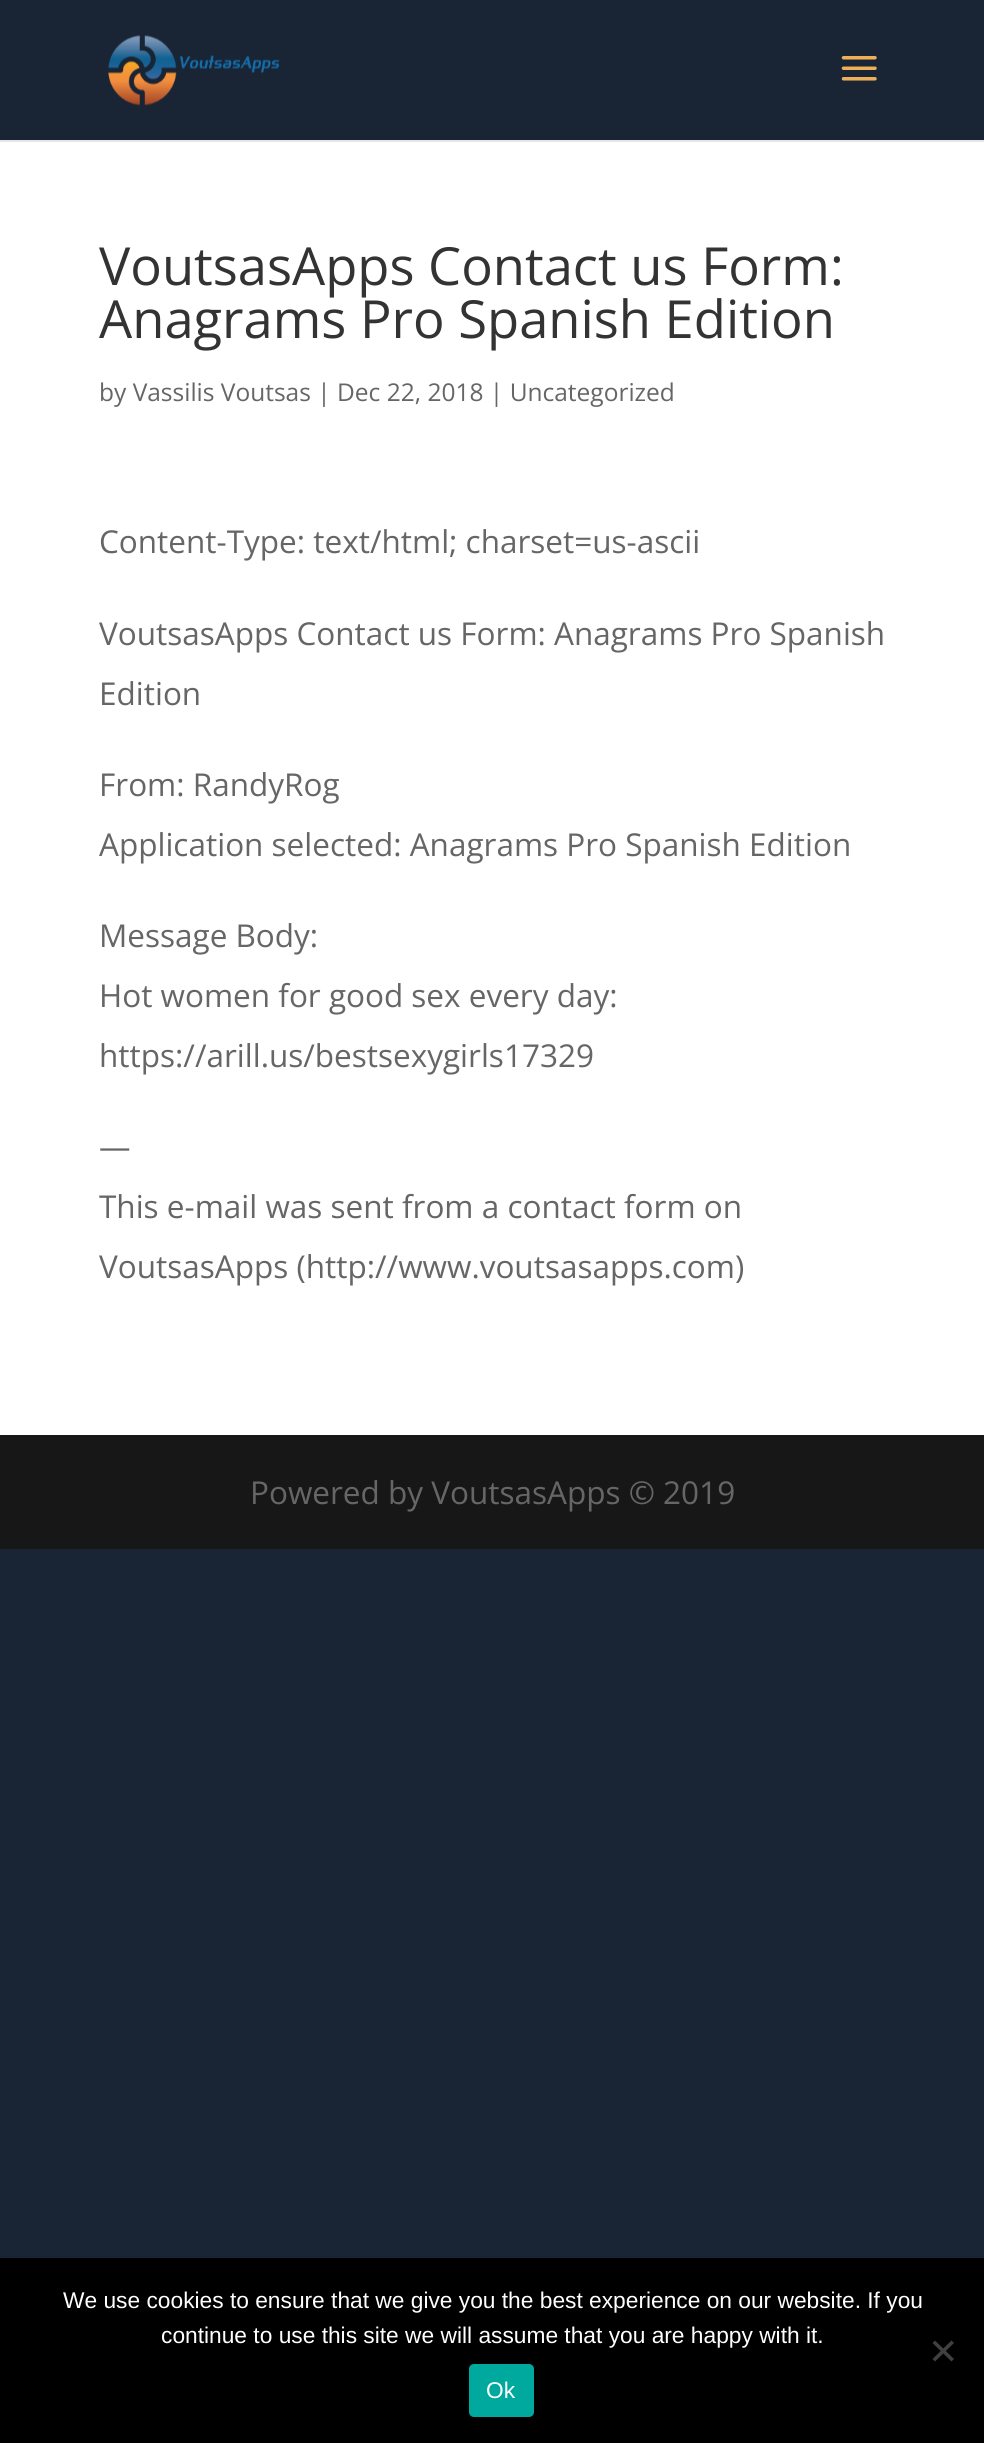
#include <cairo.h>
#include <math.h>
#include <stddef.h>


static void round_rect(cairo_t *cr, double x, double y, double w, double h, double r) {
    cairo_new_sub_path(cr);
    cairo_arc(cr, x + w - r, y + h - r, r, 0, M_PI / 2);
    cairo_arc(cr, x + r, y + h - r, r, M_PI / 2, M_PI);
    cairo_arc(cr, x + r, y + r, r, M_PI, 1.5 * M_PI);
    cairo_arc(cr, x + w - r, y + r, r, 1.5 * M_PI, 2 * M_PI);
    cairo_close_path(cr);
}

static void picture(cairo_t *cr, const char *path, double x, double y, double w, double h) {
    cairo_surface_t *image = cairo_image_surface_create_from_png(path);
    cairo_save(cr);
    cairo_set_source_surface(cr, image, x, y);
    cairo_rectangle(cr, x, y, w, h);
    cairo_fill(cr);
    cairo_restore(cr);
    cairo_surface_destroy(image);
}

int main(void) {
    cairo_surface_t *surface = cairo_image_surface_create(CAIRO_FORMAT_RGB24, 984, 2443);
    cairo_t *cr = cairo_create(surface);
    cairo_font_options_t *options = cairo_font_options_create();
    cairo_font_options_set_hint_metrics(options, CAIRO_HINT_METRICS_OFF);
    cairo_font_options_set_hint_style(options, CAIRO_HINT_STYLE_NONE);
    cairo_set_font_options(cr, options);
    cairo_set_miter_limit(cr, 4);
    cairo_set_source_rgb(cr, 0.098, 0.145, 0.204);
    cairo_paint(cr);
    cairo_set_source_rgb(cr, 0.902, 0.902, 0.902);
    cairo_rectangle(cr, 0, 140, 984, 2);
    cairo_fill(cr);
    picture(cr, "img1.png", 108, 35, 172, 71);
    picture(cr, "img2.png", 841, 56, 36, 25);
    cairo_set_source_rgb(cr, 1, 1, 1);
    cairo_rectangle(cr, 0, 142, 984, 1293);
    cairo_fill(cr);
    cairo_select_font_face(cr, "Open Sans", CAIRO_FONT_SLANT_NORMAL, CAIRO_FONT_WEIGHT_NORMAL);
    cairo_set_font_size(cr, 52.5);
    cairo_set_source_rgb(cr, 0.2, 0.2, 0.2);
    cairo_move_to(cr, 99, 285);
    cairo_show_text(cr, "VoutsasApps Contact us Form:");
    cairo_move_to(cr, 99, 338);
    cairo_show_text(cr, "Anagrams Pro Spanish Edition");
    cairo_set_font_size(cr, 24.5);
    cairo_set_source_rgb(cr, 0.4, 0.4, 0.4);
    cairo_move_to(cr, 99, 401);
    cairo_show_text(cr, "by Vassilis Voutsas | Dec 22, 2018 | Uncategorized");
    cairo_set_font_size(cr, 31.5);
    cairo_move_to(cr, 99, 553);
    cairo_show_text(cr, "Content-Type: text/html; charset=us-ascii");
    cairo_move_to(cr, 99, 645);
    cairo_show_text(cr, "VoutsasApps Contact us Form: Anagrams Pro Spanish");
    cairo_move_to(cr, 99, 705);
    cairo_show_text(cr, "Edition");
    cairo_move_to(cr, 99, 796);
    cairo_show_text(cr, "From: RandyRog");
    cairo_move_to(cr, 99, 856);
    cairo_show_text(cr, "Application selected: Anagrams Pro Spanish Edition");
    cairo_move_to(cr, 99, 947);
    cairo_show_text(cr, "Message Body:");
    cairo_move_to(cr, 99, 1007);
    cairo_show_text(cr, "Hot women for good sex every day:");
    cairo_move_to(cr, 99, 1067);
    cairo_show_text(cr, "https://arill.us/bestsexygirls17329");
    cairo_move_to(cr, 99, 1158);
    cairo_show_text(cr, "—");
    cairo_move_to(cr, 99, 1218);
    cairo_show_text(cr, "This e-mail was sent from a contact form on");
    cairo_move_to(cr, 99, 1278);
    cairo_show_text(cr, "VoutsasApps (http://www.voutsasapps.com)");
    cairo_set_source_rgb(cr, 0.09, 0.09, 0.09);
    cairo_rectangle(cr, 0, 1435, 984, 114);
    cairo_fill(cr);
    cairo_set_source_rgb(cr, 0.4, 0.4, 0.4);
    cairo_move_to(cr, 250, 1504);
    cairo_show_text(cr, "Powered by VoutsasApps © 2019");
    cairo_set_source_rgb(cr, 0, 0, 0);
    cairo_rectangle(cr, 0, 2258, 984, 185);
    cairo_fill(cr);
    cairo_select_font_face(cr, "Liberation Sans", CAIRO_FONT_SLANT_NORMAL, CAIRO_FONT_WEIGHT_NORMAL);
    cairo_set_font_size(cr, 22.75);
    cairo_set_source_rgb(cr, 1, 1, 1);
    cairo_move_to(cr, 63, 2308);
    cairo_show_text(cr, "We use cookies to ensure that we give you the best experience on our website. If you");
    cairo_move_to(cr, 161, 2343);
    cairo_show_text(cr, "continue to use this site we will assume that you are happy with it.");
    cairo_set_source_rgb(cr, 0.251, 0.251, 0.251);
    cairo_new_path(cr);
    cairo_move_to(cr, 951.5, 2340.5);
    cairo_line_to(cr, 954, 2343);
    cairo_line_to(cr, 935, 2361.5);
    cairo_line_to(cr, 932.5, 2359);
    cairo_close_path(cr);
    cairo_fill(cr);
    cairo_new_path(cr);
    cairo_move_to(cr, 932.5, 2343);
    cairo_line_to(cr, 935, 2340.5);
    cairo_line_to(cr, 954, 2359);
    cairo_line_to(cr, 951.5, 2361.5);
    cairo_close_path(cr);
    cairo_fill(cr);
    cairo_set_source_rgb(cr, 0, 0.663, 0.616);
    round_rect(cr, 469, 2364, 65, 53, 5);
    cairo_fill(cr);
    cairo_set_source_rgb(cr, 1, 1, 1);
    cairo_move_to(cr, 486, 2398);
    cairo_show_text(cr, "Ok");
    cairo_surface_write_to_png(surface, "page.png");
    cairo_font_options_destroy(options);
    cairo_destroy(cr);
    cairo_surface_destroy(surface);
    return 0;
}
